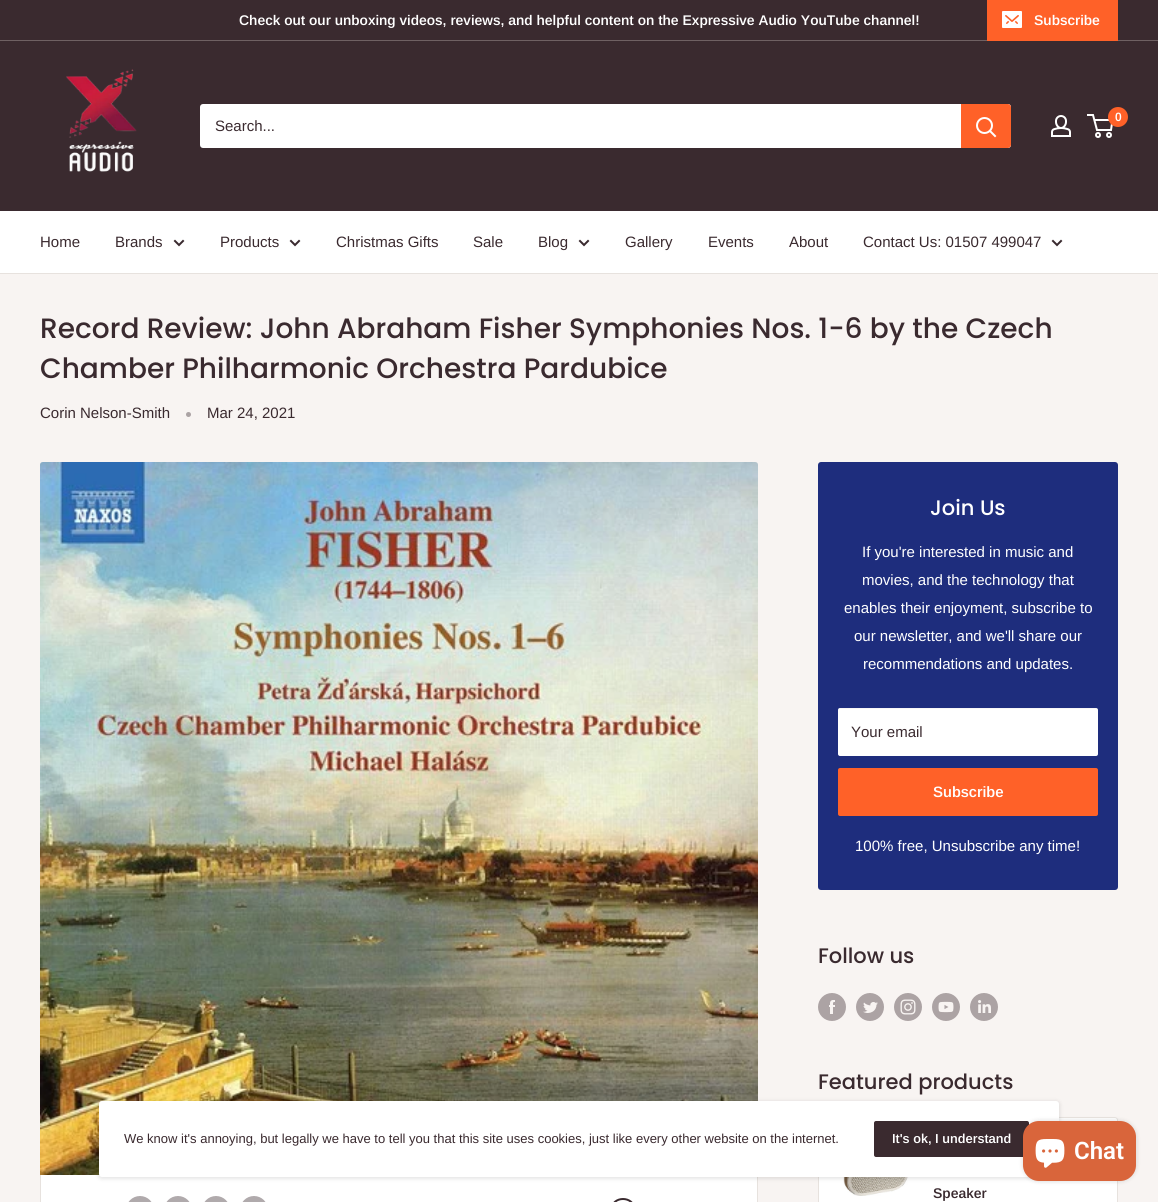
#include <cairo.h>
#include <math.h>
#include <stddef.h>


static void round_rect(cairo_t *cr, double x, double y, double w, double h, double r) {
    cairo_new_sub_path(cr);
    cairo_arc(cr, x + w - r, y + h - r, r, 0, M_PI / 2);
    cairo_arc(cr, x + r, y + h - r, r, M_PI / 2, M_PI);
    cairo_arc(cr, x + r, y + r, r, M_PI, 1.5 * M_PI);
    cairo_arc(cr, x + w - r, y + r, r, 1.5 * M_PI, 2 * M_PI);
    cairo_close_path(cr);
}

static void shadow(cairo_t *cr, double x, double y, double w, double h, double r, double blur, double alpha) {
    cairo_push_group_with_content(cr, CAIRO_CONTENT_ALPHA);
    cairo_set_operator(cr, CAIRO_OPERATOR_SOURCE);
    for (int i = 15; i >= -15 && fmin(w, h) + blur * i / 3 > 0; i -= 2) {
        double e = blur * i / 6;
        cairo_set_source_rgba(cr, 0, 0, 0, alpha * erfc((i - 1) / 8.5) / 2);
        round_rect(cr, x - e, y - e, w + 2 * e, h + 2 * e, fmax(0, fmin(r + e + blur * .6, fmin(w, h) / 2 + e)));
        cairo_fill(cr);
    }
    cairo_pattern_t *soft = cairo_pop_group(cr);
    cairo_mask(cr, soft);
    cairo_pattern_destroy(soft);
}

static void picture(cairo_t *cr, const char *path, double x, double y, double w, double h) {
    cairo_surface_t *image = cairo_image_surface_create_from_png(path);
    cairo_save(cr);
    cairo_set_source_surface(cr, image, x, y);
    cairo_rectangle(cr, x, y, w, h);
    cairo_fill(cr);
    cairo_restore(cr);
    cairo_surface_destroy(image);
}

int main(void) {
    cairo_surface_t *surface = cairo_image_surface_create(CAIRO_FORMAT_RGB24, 1158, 1202);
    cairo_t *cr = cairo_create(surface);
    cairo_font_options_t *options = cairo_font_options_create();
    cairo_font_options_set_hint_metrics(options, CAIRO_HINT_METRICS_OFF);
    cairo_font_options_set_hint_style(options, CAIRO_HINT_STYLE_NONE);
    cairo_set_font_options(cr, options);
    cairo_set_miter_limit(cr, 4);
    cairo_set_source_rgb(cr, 0.969, 0.957, 0.949);
    cairo_paint(cr);
    cairo_set_source_rgb(cr, 0.227, 0.165, 0.184);
    cairo_rectangle(cr, 0, 0, 1158, 40);
    cairo_fill(cr);
    cairo_set_source_rgb(cr, 0.435, 0.38, 0.388);
    cairo_rectangle(cr, 0, 40, 1158, 1);
    cairo_fill(cr);
    cairo_select_font_face(cr, "Arimo SemiBold", CAIRO_FONT_SLANT_NORMAL, CAIRO_FONT_WEIGHT_NORMAL);
    cairo_set_font_size(cr, 14);
    cairo_set_source_rgb(cr, 1, 1, 1);
    cairo_move_to(cr, 239, 25);
    cairo_show_text(cr, "Check out our unboxing videos, reviews, and helpful content on the Expressive Audio YouTube channel!");
    cairo_set_source_rgb(cr, 1, 0.38, 0.157);
    cairo_rectangle(cr, 987, 0, 131, 41);
    cairo_fill(cr);
    picture(cr, "img1.png", 1002, 11, 20, 17);
    cairo_set_source_rgb(cr, 1, 1, 1);
    cairo_move_to(cr, 1034, 25);
    cairo_show_text(cr, "Subscribe");
    cairo_set_source_rgb(cr, 0.227, 0.165, 0.184);
    cairo_rectangle(cr, 0, 41, 1158, 170);
    cairo_fill(cr);
    picture(cr, "img2.png", 66, 69, 71, 103);
    picture(cr, "img3.png", 1051, 115, 20, 22);
    cairo_arc(cr, 1098, 135, 2, 0, 2 * M_PI);
    cairo_set_source_rgb(cr, 1, 1, 1);
    cairo_stroke(cr);
    cairo_arc(cr, 1109, 135, 2, 0, 2 * M_PI);
    cairo_stroke(cr);
    cairo_new_path(cr);
    cairo_move_to(cr, 1094.5, 120);
    cairo_line_to(cr, 1112.5, 120);
    cairo_line_to(cr, 1111, 130);
    cairo_line_to(cr, 1097, 130);
    cairo_line_to(cr, 1093, 115);
    cairo_line_to(cr, 1087, 115);
    cairo_stroke(cr);
    cairo_set_source_rgb(cr, 1, 0.38, 0.157);
    cairo_arc(cr, 1118, 117, 10, 0, 2 * M_PI);
    cairo_fill(cr);
    cairo_set_font_size(cr, 12);
    cairo_set_source_rgb(cr, 1, 1, 1);
    cairo_move_to(cr, 1115, 121);
    cairo_show_text(cr, "0");
    round_rect(cr, 200, 104, 811, 44, 3);
    cairo_fill(cr);
    cairo_select_font_face(cr, "Arimo", CAIRO_FONT_SLANT_NORMAL, CAIRO_FONT_WEIGHT_NORMAL);
    cairo_set_font_size(cr, 15);
    cairo_set_source_rgb(cr, 0.227, 0.165, 0.184);
    cairo_move_to(cr, 215, 131);
    cairo_show_text(cr, "Search...");
    cairo_set_source_rgb(cr, 1, 0.38, 0.157);
    cairo_new_path(cr);
    cairo_move_to(cr, 961, 104);
    cairo_line_to(cr, 1008, 104);
    cairo_curve_to(cr, 1009.5, 104, 1011, 105.5, 1011, 107);
    cairo_line_to(cr, 1011, 145);
    cairo_curve_to(cr, 1011, 146.5, 1009.5, 148, 1008, 148);
    cairo_line_to(cr, 961, 148);
    cairo_close_path(cr);
    cairo_fill(cr);
    cairo_new_path(cr);
    cairo_move_to(cr, 995, 136);
    cairo_line_to(cr, 990, 131);
    cairo_set_source_rgb(cr, 1, 1, 1);
    cairo_set_line_cap(cr, CAIRO_LINE_CAP_SQUARE);
    cairo_stroke(cr);
    cairo_arc(cr, 984.5, 125.5, 7.5, 0, 2 * M_PI);
    cairo_set_line_cap(cr, CAIRO_LINE_CAP_BUTT);
    cairo_stroke(cr);
    cairo_rectangle(cr, 0, 211, 1158, 62);
    cairo_fill(cr);
    cairo_set_source_rgb(cr, 0.906, 0.886, 0.871);
    cairo_rectangle(cr, 0, 273, 1158, 1);
    cairo_fill(cr);
    cairo_set_source_rgb(cr, 0.227, 0.165, 0.184);
    cairo_move_to(cr, 40, 247);
    cairo_show_text(cr, "Home");
    cairo_move_to(cr, 115, 247);
    cairo_show_text(cr, "Brands");
    cairo_new_path(cr);
    cairo_move_to(cr, 183, 241);
    cairo_line_to(cr, 179, 245);
    cairo_line_to(cr, 175, 241);
    cairo_set_line_cap(cr, CAIRO_LINE_CAP_SQUARE);
    cairo_stroke(cr);
    cairo_move_to(cr, 220, 247);
    cairo_show_text(cr, "Products");
    cairo_new_path(cr);
    cairo_move_to(cr, 299, 241);
    cairo_line_to(cr, 295, 245);
    cairo_line_to(cr, 291, 241);
    cairo_stroke(cr);
    cairo_move_to(cr, 336, 247);
    cairo_show_text(cr, "Christmas Gifts");
    cairo_move_to(cr, 473, 247);
    cairo_show_text(cr, "Sale");
    cairo_move_to(cr, 538, 247);
    cairo_show_text(cr, "Blog");
    cairo_new_path(cr);
    cairo_move_to(cr, 588, 241);
    cairo_line_to(cr, 584, 245);
    cairo_line_to(cr, 580, 241);
    cairo_stroke(cr);
    cairo_move_to(cr, 625, 247);
    cairo_show_text(cr, "Gallery");
    cairo_move_to(cr, 708, 247);
    cairo_show_text(cr, "Events");
    cairo_move_to(cr, 789, 247);
    cairo_show_text(cr, "About");
    cairo_move_to(cr, 863, 247);
    cairo_show_text(cr, "Contact Us: 01507 499047");
    cairo_new_path(cr);
    cairo_move_to(cr, 1061, 241);
    cairo_line_to(cr, 1057, 245);
    cairo_line_to(cr, 1053, 241);
    cairo_stroke(cr);
    cairo_select_font_face(cr, "Poppins Medium", CAIRO_FONT_SLANT_NORMAL, CAIRO_FONT_WEIGHT_NORMAL);
    cairo_set_font_size(cr, 28);
    cairo_move_to(cr, 40, 338);
    cairo_show_text(cr, "Record Review: John Abraham Fisher Symphonies Nos. 1-6 by the Czech");
    cairo_move_to(cr, 40, 378);
    cairo_show_text(cr, "Chamber Philharmonic Orchestra Pardubice");
    cairo_select_font_face(cr, "Arimo", CAIRO_FONT_SLANT_NORMAL, CAIRO_FONT_WEIGHT_NORMAL);
    cairo_set_font_size(cr, 15);
    cairo_move_to(cr, 40, 418);
    cairo_show_text(cr, "Corin Nelson-Smith");
    cairo_set_source_rgb(cr, 0.671, 0.639, 0.643);
    cairo_new_path(cr);
    cairo_arc(cr, 188.5, 414.5, 2.5, 0, 2 * M_PI);
    cairo_fill(cr);
    cairo_set_source_rgb(cr, 0.227, 0.165, 0.184);
    cairo_move_to(cr, 207, 418);
    cairo_show_text(cr, "Mar 24, 2021");
    cairo_set_source_rgb(cr, 1, 1, 1);
    cairo_rectangle(cr, 40.5, 1174.5, 717, 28);
    cairo_fill_preserve(cr);
    cairo_set_source_rgb(cr, 0.906, 0.886, 0.871);
    cairo_set_line_width(cr, 1);
    cairo_set_line_cap(cr, CAIRO_LINE_CAP_BUTT);
    cairo_stroke(cr);
    picture(cr, "img4.png", 40, 462, 718, 713);
    picture(cr, "img5.png", 128, 1196, 24, 6);
    picture(cr, "img5.png", 166, 1196, 24, 6);
    picture(cr, "img5.png", 204, 1196, 24, 6);
    picture(cr, "img5.png", 242, 1196, 24, 6);
    picture(cr, "img6.png", 613, 1198, 20, 4);
    cairo_set_source_rgb(cr, 0.118, 0.176, 0.49);
    round_rect(cr, 818, 462, 300, 428, 3);
    cairo_fill(cr);
    cairo_select_font_face(cr, "Poppins Medium", CAIRO_FONT_SLANT_NORMAL, CAIRO_FONT_WEIGHT_NORMAL);
    cairo_set_font_size(cr, 21);
    cairo_set_source_rgb(cr, 1, 1, 1);
    cairo_move_to(cr, 930, 515);
    cairo_show_text(cr, "Join Us");
    cairo_select_font_face(cr, "Arimo", CAIRO_FONT_SLANT_NORMAL, CAIRO_FONT_WEIGHT_NORMAL);
    cairo_set_font_size(cr, 15);
    cairo_move_to(cr, 862, 557);
    cairo_show_text(cr, "If you're interested in music and");
    cairo_move_to(cr, 862, 585);
    cairo_show_text(cr, "movies, and the technology that");
    cairo_move_to(cr, 844, 613);
    cairo_show_text(cr, "enables their enjoyment, subscribe to");
    cairo_move_to(cr, 854, 641);
    cairo_show_text(cr, "our newsletter, and we'll share our");
    cairo_move_to(cr, 863, 669);
    cairo_show_text(cr, "recommendations and updates.");
    round_rect(cr, 838, 708, 260, 48, 2);
    cairo_fill(cr);
    cairo_set_source_rgba(cr, 0.906, 0.886, 0.871, 0.25);
    cairo_new_path(cr);
    cairo_move_to(cr, 840, 709);
    cairo_line_to(cr, 1096, 709);
    cairo_curve_to(cr, 1097, 709, 1098, 710, 1098, 711);
    cairo_line_to(cr, 1098, 710);
    cairo_curve_to(cr, 1098, 709, 1097, 708, 1096, 708);
    cairo_line_to(cr, 840, 708);
    cairo_curve_to(cr, 839, 708, 838, 709, 838, 710);
    cairo_line_to(cr, 838, 711);
    cairo_curve_to(cr, 838, 710, 839, 709, 840, 709);
    cairo_close_path(cr);
    cairo_fill(cr);
    cairo_set_source_rgb(cr, 0.227, 0.165, 0.184);
    cairo_move_to(cr, 851, 737);
    cairo_show_text(cr, "Your email");
    cairo_set_source_rgb(cr, 1, 0.38, 0.157);
    round_rect(cr, 838, 768, 260, 48, 2);
    cairo_fill(cr);
    cairo_select_font_face(cr, "Arimo SemiBold", CAIRO_FONT_SLANT_NORMAL, CAIRO_FONT_WEIGHT_NORMAL);
    cairo_set_source_rgb(cr, 1, 1, 1);
    cairo_move_to(cr, 933, 797);
    cairo_show_text(cr, "Subscribe");
    cairo_select_font_face(cr, "Arimo", CAIRO_FONT_SLANT_NORMAL, CAIRO_FONT_WEIGHT_NORMAL);
    cairo_move_to(cr, 855, 851);
    cairo_show_text(cr, "100% free, Unsubscribe any time!");
    cairo_select_font_face(cr, "Poppins Medium", CAIRO_FONT_SLANT_NORMAL, CAIRO_FONT_WEIGHT_NORMAL);
    cairo_set_font_size(cr, 21);
    cairo_set_source_rgb(cr, 0.227, 0.165, 0.184);
    cairo_move_to(cr, 818, 963);
    cairo_show_text(cr, "Follow us");
    picture(cr, "img7.png", 818, 993, 28, 28);
    picture(cr, "img8.png", 856, 993, 28, 28);
    picture(cr, "img9.png", 894, 993, 28, 28);
    picture(cr, "img10.png", 932, 993, 28, 28);
    picture(cr, "img11.png", 970, 993, 28, 28);
    cairo_move_to(cr, 818, 1089);
    cairo_show_text(cr, "Featured products");
    cairo_set_source_rgb(cr, 1, 1, 1);
    cairo_new_path(cr);
    cairo_move_to(cr, 821, 1117);
    cairo_line_to(cr, 1115, 1117);
    cairo_curve_to(cr, 1116.5, 1117, 1118, 1118.5, 1118, 1120);
    cairo_line_to(cr, 1118, 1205);
    cairo_line_to(cr, 818, 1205);
    cairo_line_to(cr, 818, 1120);
    cairo_curve_to(cr, 818, 1118.5, 819.5, 1117, 821, 1117);
    cairo_close_path(cr);
    cairo_fill(cr);
    picture(cr, "img12.png", 843, 1177, 66, 19);
    round_rect(cr, 818.5, 1117.5, 299, 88, 2.5);
    cairo_set_source_rgb(cr, 0.906, 0.886, 0.871);
    cairo_stroke(cr);
    cairo_select_font_face(cr, "Arimo SemiBold", CAIRO_FONT_SLANT_NORMAL, CAIRO_FONT_WEIGHT_NORMAL);
    cairo_set_font_size(cr, 14);
    cairo_set_source_rgb(cr, 0.227, 0.165, 0.184);
    cairo_move_to(cr, 933, 1198);
    cairo_show_text(cr, "Speaker");
    cairo_set_source_rgb(cr, 0, 0, 0);
    shadow(cr, 98, 1101, 962, 78, 4, 2, 0.1);
    cairo_set_source_rgb(cr, 1, 1, 1);
    round_rect(cr, 99, 1101, 960, 76, 3);
    cairo_fill(cr);
    cairo_select_font_face(cr, "Arimo", CAIRO_FONT_SLANT_NORMAL, CAIRO_FONT_WEIGHT_NORMAL);
    cairo_set_font_size(cr, 13);
    cairo_set_source_rgb(cr, 0.227, 0.165, 0.184);
    cairo_move_to(cr, 124, 1143);
    cairo_show_text(cr, "We know it's annoying, but legally we have to tell you that this site uses cookies, just like every other website on the internet.");
    round_rect(cr, 874, 1121, 155, 36, 2);
    cairo_fill(cr);
    cairo_select_font_face(cr, "Arimo SemiBold", CAIRO_FONT_SLANT_NORMAL, CAIRO_FONT_WEIGHT_NORMAL);
    cairo_set_source_rgb(cr, 1, 1, 1);
    cairo_move_to(cr, 892, 1143);
    cairo_show_text(cr, "It's ok, I understand");
    cairo_set_source_rgb(cr, 0, 0, 0);
    shadow(cr, 1023, 1121, 113, 60, 16, 2.5, 0.15);
    cairo_set_source_rgb(cr, 0.851, 0.396, 0.231);
    round_rect(cr, 1023, 1121, 113, 60, 16);
    cairo_fill(cr);
    picture(cr, "img13.png", 1035, 1139, 30, 29);
    cairo_select_font_face(cr, "Roboto SemiBold", CAIRO_FONT_SLANT_NORMAL, CAIRO_FONT_WEIGHT_NORMAL);
    cairo_set_font_size(cr, 24);
    cairo_set_source_rgb(cr, 1, 1, 1);
    cairo_move_to(cr, 1074, 1159);
    cairo_show_text(cr, "Chat");
    cairo_surface_write_to_png(surface, "page.png");
    cairo_font_options_destroy(options);
    cairo_destroy(cr);
    cairo_surface_destroy(surface);
    return 0;
}
